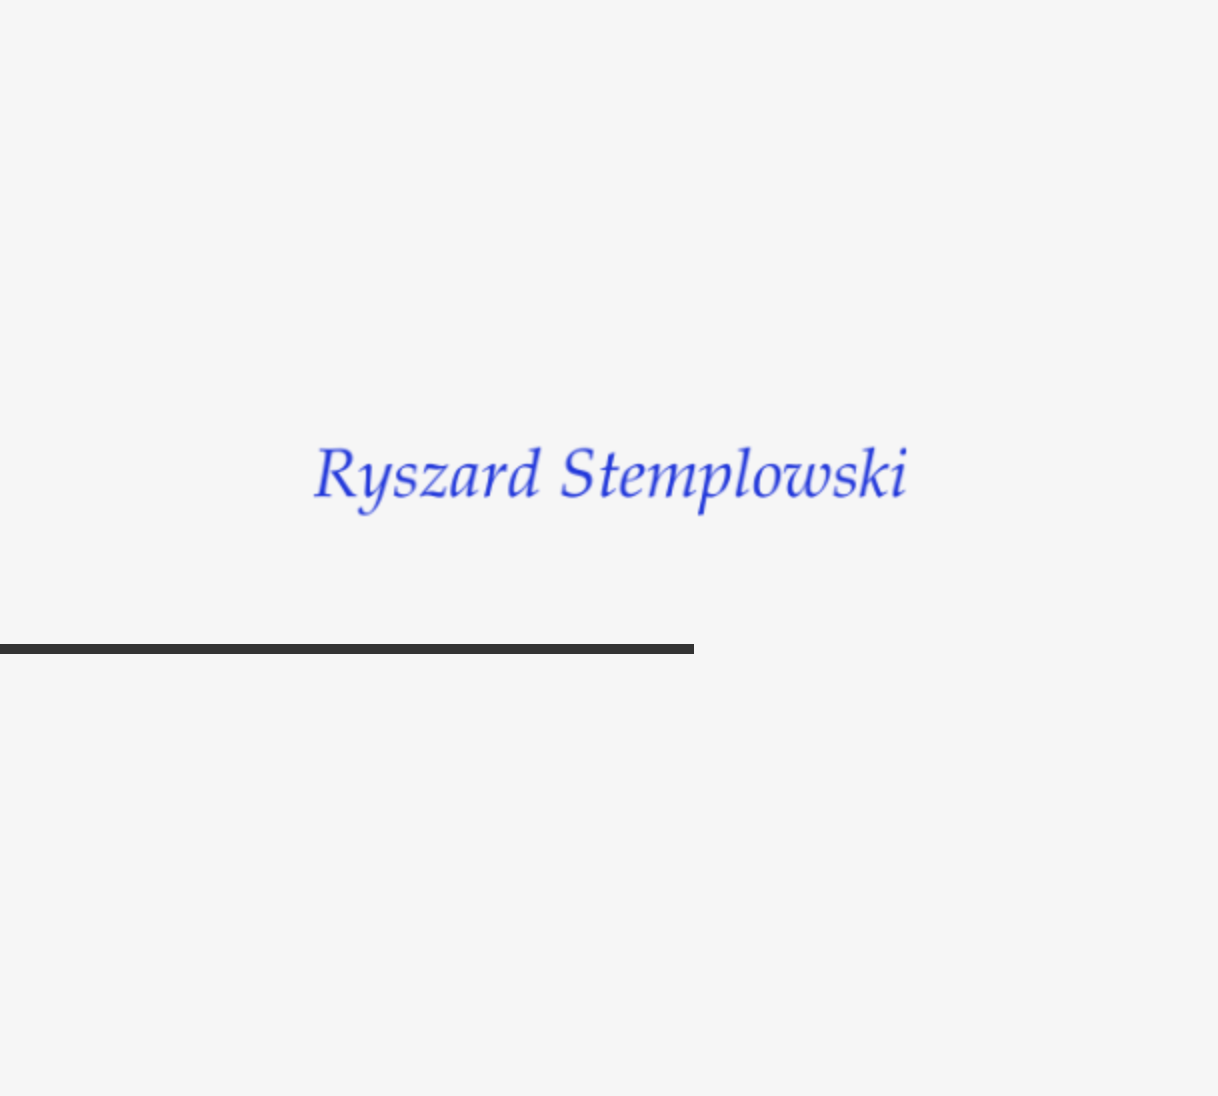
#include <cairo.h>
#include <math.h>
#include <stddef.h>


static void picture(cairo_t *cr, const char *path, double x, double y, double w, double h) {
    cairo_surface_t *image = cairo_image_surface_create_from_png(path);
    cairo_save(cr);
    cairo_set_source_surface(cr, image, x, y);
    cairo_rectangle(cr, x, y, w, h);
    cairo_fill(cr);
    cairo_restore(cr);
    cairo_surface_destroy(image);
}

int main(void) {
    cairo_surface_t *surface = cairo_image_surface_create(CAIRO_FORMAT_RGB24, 1218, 1096);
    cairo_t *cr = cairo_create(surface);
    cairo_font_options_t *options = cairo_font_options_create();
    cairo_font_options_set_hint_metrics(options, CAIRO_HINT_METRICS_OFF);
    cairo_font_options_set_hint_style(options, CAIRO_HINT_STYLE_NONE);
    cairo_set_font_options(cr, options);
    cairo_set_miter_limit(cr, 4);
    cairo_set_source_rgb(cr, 0.961, 0.961, 0.961);
    cairo_paint(cr);
    picture(cr, "img1.png", 312, 445, 596, 72);
    cairo_set_source_rgb(cr, 0.2, 0.2, 0.2);
    cairo_rectangle(cr, 0, 644, 694, 10);
    cairo_fill(cr);
    cairo_surface_write_to_png(surface, "page.png");
    cairo_font_options_destroy(options);
    cairo_destroy(cr);
    cairo_surface_destroy(surface);
    return 0;
}
